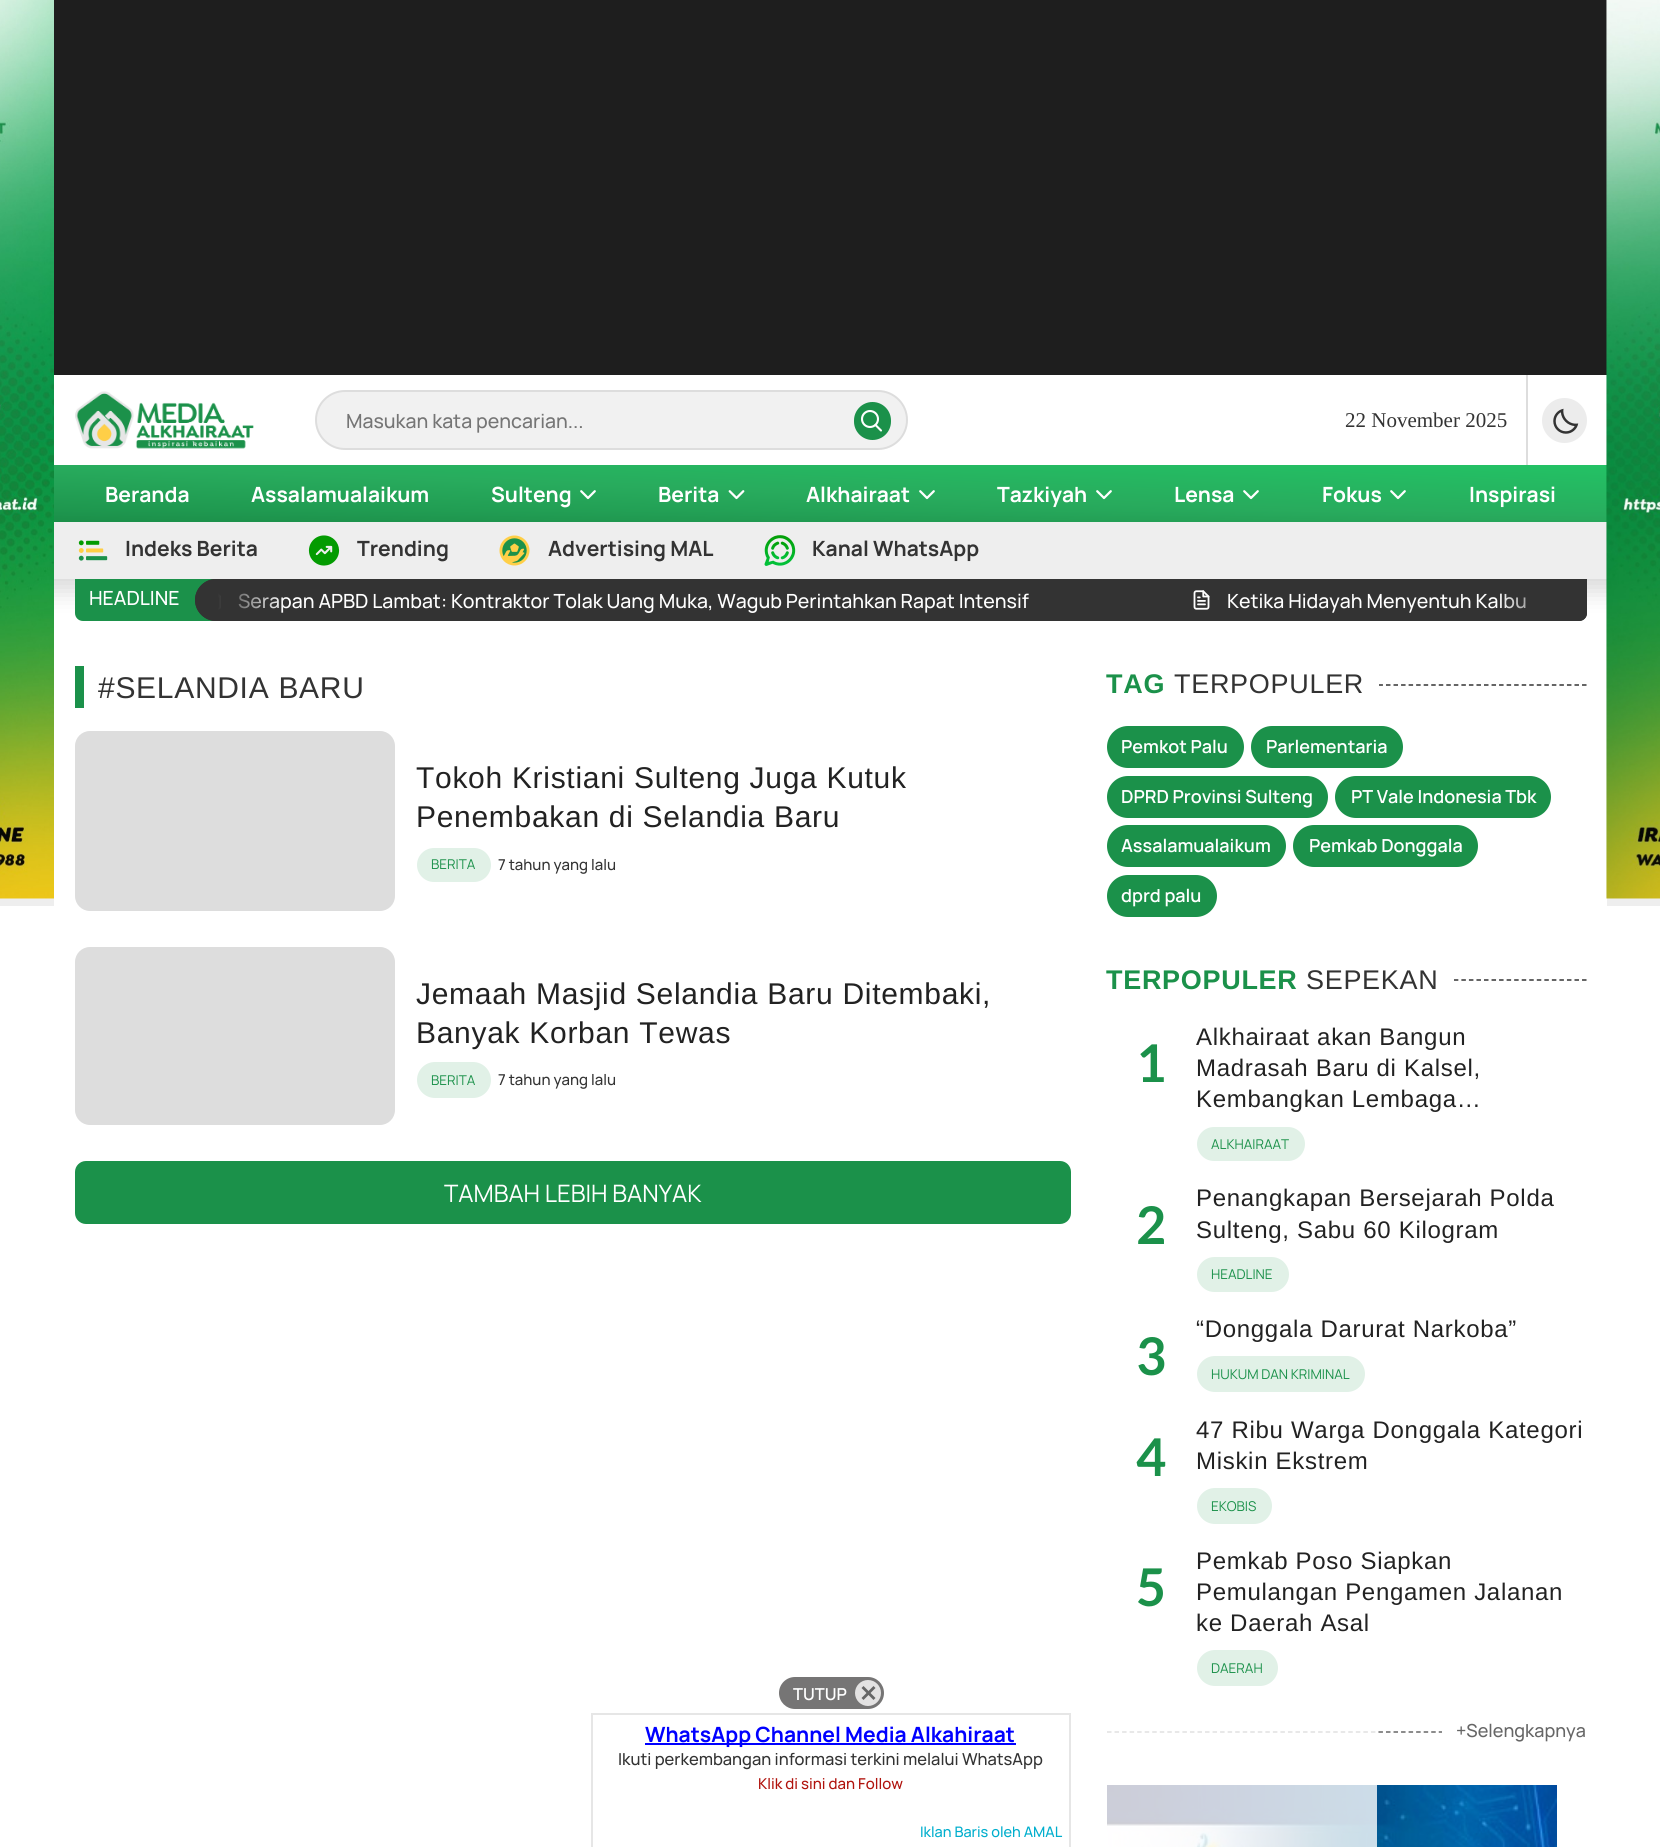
#include <cairo.h>
#include <math.h>
#include <stddef.h>


static void spaced_text(cairo_t *cr, double x, double y, const char *s, double letter, double word) {
    cairo_move_to(cr, x, y);
    while (*s) {
        char ch[5] = {0};
        int n = 0;
        do ch[n++] = *s++; while ((*s & 0xC0) == 0x80);
        cairo_show_text(cr, ch);
        cairo_rel_move_to(cr, letter + word * (*ch == ' '), 0);
    }
}

static void round_rect(cairo_t *cr, double x, double y, double w, double h, double r) {
    cairo_new_sub_path(cr);
    cairo_arc(cr, x + w - r, y + h - r, r, 0, M_PI / 2);
    cairo_arc(cr, x + r, y + h - r, r, M_PI / 2, M_PI);
    cairo_arc(cr, x + r, y + r, r, M_PI, 1.5 * M_PI);
    cairo_arc(cr, x + w - r, y + r, r, 1.5 * M_PI, 2 * M_PI);
    cairo_close_path(cr);
}

static void shadow(cairo_t *cr, double x, double y, double w, double h, double r, double blur, double alpha) {
    cairo_push_group_with_content(cr, CAIRO_CONTENT_ALPHA);
    cairo_set_operator(cr, CAIRO_OPERATOR_SOURCE);
    for (int i = 15; i >= -15 && fmin(w, h) + blur * i / 3 > 0; i -= 2) {
        double e = blur * i / 6;
        cairo_set_source_rgba(cr, 0, 0, 0, alpha * erfc((i - 1) / 8.5) / 2);
        round_rect(cr, x - e, y - e, w + 2 * e, h + 2 * e, fmax(0, fmin(r + e + blur * .6, fmin(w, h) / 2 + e)));
        cairo_fill(cr);
    }
    cairo_pattern_t *soft = cairo_pop_group(cr);
    cairo_mask(cr, soft);
    cairo_pattern_destroy(soft);
}

static void picture(cairo_t *cr, const char *path, double x, double y, double w, double h) {
    cairo_surface_t *image = cairo_image_surface_create_from_png(path);
    cairo_save(cr);
    cairo_set_source_surface(cr, image, x, y);
    cairo_rectangle(cr, x, y, w, h);
    cairo_fill(cr);
    cairo_restore(cr);
    cairo_surface_destroy(image);
}

int main(void) {
    cairo_surface_t *surface = cairo_image_surface_create(CAIRO_FORMAT_RGB24, 1660, 1847);
    cairo_t *cr = cairo_create(surface);
    cairo_font_options_t *options = cairo_font_options_create();
    cairo_font_options_set_hint_metrics(options, CAIRO_HINT_METRICS_OFF);
    cairo_font_options_set_hint_style(options, CAIRO_HINT_STYLE_NONE);
    cairo_set_font_options(cr, options);
    cairo_set_miter_limit(cr, 4);
    cairo_pattern_t *gradient;
    cairo_set_source_rgb(cr, 1, 1, 1);
    cairo_paint(cr);
    cairo_set_source_rgb(cr, 0.933, 0.933, 0.933);
    cairo_rectangle(cr, 0, 898, 54, 8);
    cairo_fill(cr);
    gradient = cairo_pattern_create_linear(828, 550, 832, 437);
    cairo_pattern_add_color_stop_rgba(gradient, 0, 0.106, 0.569, 0.29, 1);
    cairo_pattern_add_color_stop_rgba(gradient, 0.5, 0.157, 0.671, 0.365, 1);
    cairo_pattern_add_color_stop_rgba(gradient, 1, 0.137, 0.761, 0.396, 1);
    cairo_set_source(cr, gradient);
    cairo_pattern_destroy(gradient);
    cairo_rectangle(cr, 54, 465, 1553, 57);
    cairo_fill(cr);
    cairo_set_source_rgb(cr, 0, 0, 0);
    shadow(cr, 0, 534, 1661, 57, 0, 12, 0.15);
    picture(cr, "img1.png", 0, 0, 54, 899);
    cairo_set_source_rgb(cr, 0.118, 0.118, 0.118);
    cairo_rectangle(cr, 54, 0, 1553, 375);
    cairo_fill(cr);
    cairo_set_source_rgb(cr, 0.933, 0.933, 0.933);
    cairo_rectangle(cr, 1607, 898, 53, 8);
    cairo_fill(cr);
    cairo_rectangle(cr, 54, 522, 1553, 57);
    cairo_fill(cr);
    picture(cr, "img2.png", 1606, 0, 54, 899);
    picture(cr, "img3.png", 75, 391, 179, 58);
    cairo_set_source_rgb(cr, 0.945, 0.945, 0.945);
    round_rect(cr, 316, 391, 591, 58, 29);
    cairo_fill_preserve(cr);
    cairo_set_source_rgb(cr, 0.867, 0.867, 0.867);
    cairo_stroke(cr);
    cairo_select_font_face(cr, "Manrope Medium", CAIRO_FONT_SLANT_NORMAL, CAIRO_FONT_WEIGHT_NORMAL);
    cairo_set_font_size(cr, 19.5);
    cairo_set_source_rgb(cr, 0.459, 0.459, 0.459);
    cairo_move_to(cr, 346, 428);
    cairo_show_text(cr, "Masukan kata pencarian...");
    cairo_set_source_rgb(cr, 0.106, 0.569, 0.29);
    round_rect(cr, 854, 402, 37, 38, 18.5);
    cairo_fill(cr);
    cairo_arc(cr, 870, 419, 8, 0, 2 * M_PI);
    cairo_set_source_rgb(cr, 1, 1, 1);
    cairo_set_line_width(cr, 2.1);
    cairo_stroke(cr);
    cairo_new_path(cr);
    cairo_move_to(cr, 881, 430.5);
    cairo_line_to(cr, 875.5, 425);
    cairo_set_line_cap(cr, CAIRO_LINE_CAP_ROUND);
    cairo_set_line_join(cr, CAIRO_LINE_JOIN_ROUND);
    cairo_stroke(cr);
    cairo_select_font_face(cr, "Liberation Serif", CAIRO_FONT_SLANT_NORMAL, CAIRO_FONT_WEIGHT_NORMAL);
    cairo_set_font_size(cr, 21);
    cairo_set_source_rgb(cr, 0.2, 0.2, 0.2);
    cairo_move_to(cr, 1345, 427);
    cairo_show_text(cr, "22 November 2025");
    cairo_set_source_rgb(cr, 0.867, 0.867, 0.867);
    cairo_rectangle(cr, 1526, 375, 2, 90);
    cairo_fill(cr);
    cairo_set_source_rgb(cr, 0.922, 0.922, 0.922);
    cairo_arc(cr, 1564.5, 420.5, 22.5, 0, 2 * M_PI);
    cairo_fill(cr);
    picture(cr, "img4.png", 1553, 408, 26, 26);
    cairo_select_font_face(cr, "Manrope", CAIRO_FONT_SLANT_NORMAL, CAIRO_FONT_WEIGHT_BOLD);
    cairo_set_source_rgb(cr, 1, 1, 1);
    cairo_move_to(cr, 105, 502);
    cairo_show_text(cr, "Beranda");
    cairo_move_to(cr, 251, 502);
    cairo_show_text(cr, "Assalamualaikum");
    cairo_move_to(cr, 491, 502);
    cairo_show_text(cr, "Sulteng");
    picture(cr, "img5.png", 580, 490, 16, 10);
    cairo_move_to(cr, 658, 502);
    cairo_show_text(cr, "Berita");
    picture(cr, "img6.png", 728, 490, 17, 10);
    cairo_move_to(cr, 806, 502);
    cairo_show_text(cr, "Alkhairaat");
    picture(cr, "img7.png", 919, 490, 16, 10);
    cairo_move_to(cr, 997, 502);
    cairo_show_text(cr, "Tazkiyah");
    picture(cr, "img8.png", 1096, 490, 16, 10);
    cairo_move_to(cr, 1174, 502);
    cairo_show_text(cr, "Lensa");
    picture(cr, "img9.png", 1243, 490, 16, 10);
    cairo_move_to(cr, 1322, 502);
    cairo_show_text(cr, "Fokus");
    picture(cr, "img10.png", 1390, 490, 16, 10);
    cairo_move_to(cr, 1469, 502);
    cairo_show_text(cr, "Inspirasi");
    picture(cr, "img11.png", 78, 540, 30, 21);
    cairo_set_source_rgb(cr, 0.2, 0.2, 0.2);
    cairo_move_to(cr, 125, 556);
    cairo_show_text(cr, "Indeks Berita");
    picture(cr, "img12.png", 308, 535, 32, 31);
    cairo_move_to(cr, 357, 556);
    cairo_show_text(cr, "Trending");
    picture(cr, "img13.png", 499, 535, 31, 31);
    cairo_move_to(cr, 548, 556);
    cairo_show_text(cr, "Advertising MAL");
    picture(cr, "img14.png", 764, 535, 32, 31);
    cairo_move_to(cr, 812, 556);
    cairo_show_text(cr, "Kanal WhatsApp");
    cairo_set_source_rgb(cr, 0.106, 0.569, 0.29);
    cairo_new_path(cr);
    cairo_move_to(cr, 75, 579);
    cairo_line_to(cr, 225, 579);
    cairo_line_to(cr, 225, 621);
    cairo_line_to(cr, 83, 621);
    cairo_curve_to(cr, 78.5, 621, 75, 617.5, 75, 613);
    cairo_close_path(cr);
    cairo_fill(cr);
    cairo_select_font_face(cr, "Manrope Medium", CAIRO_FONT_SLANT_NORMAL, CAIRO_FONT_WEIGHT_NORMAL);
    cairo_set_font_size(cr, 19.5);
    cairo_set_source_rgb(cr, 1, 1, 1);
    cairo_move_to(cr, 89, 605);
    cairo_show_text(cr, "HEADLINE");
    cairo_set_source_rgb(cr, 0.2, 0.2, 0.2);
    cairo_new_path(cr);
    cairo_move_to(cr, 216, 579);
    cairo_line_to(cr, 1587, 579);
    cairo_line_to(cr, 1587, 613);
    cairo_curve_to(cr, 1587, 617.5, 1583.5, 621, 1579, 621);
    cairo_line_to(cr, 216, 621);
    cairo_curve_to(cr, 204.5, 621, 195, 611.5, 195, 600);
    cairo_curve_to(cr, 195, 588.5, 204.5, 579, 216, 579);
    cairo_close_path(cr);
    cairo_fill(cr);
    picture(cr, "img15.png", 218, 593, 3, 17);
    cairo_set_source_rgb(cr, 1, 1, 1);
    cairo_move_to(cr, 238, 608);
    cairo_show_text(cr, "Serapan APBD Lambat: Kontraktor Tolak Uang Muka, Wagub Perintahkan Rapat Intensif");
    gradient = cairo_pattern_create_linear(195, 600, 285, 600);
    cairo_pattern_add_color_stop_rgba(gradient, 0.25, 0.2, 0.2, 0.2, 1);
    cairo_pattern_add_color_stop_rgba(gradient, 1, 0.2, 0.2, 0.2, 0);
    cairo_set_source(cr, gradient);
    cairo_pattern_destroy(gradient);
    cairo_new_path(cr);
    cairo_move_to(cr, 216, 579);
    cairo_line_to(cr, 285, 579);
    cairo_line_to(cr, 285, 621);
    cairo_line_to(cr, 216, 621);
    cairo_curve_to(cr, 204.5, 621, 195, 611.5, 195, 600);
    cairo_curve_to(cr, 195, 588.5, 204.5, 579, 216, 579);
    cairo_close_path(cr);
    cairo_fill(cr);
    cairo_set_source_rgb(cr, 1, 1, 1);
    cairo_move_to(cr, 1227, 608);
    cairo_show_text(cr, "Ketika Hidayah Menyentuh Kalbu");
    gradient = cairo_pattern_create_linear(1587, 600, 1497, 600);
    cairo_pattern_add_color_stop_rgba(gradient, 0.25, 0.2, 0.2, 0.2, 1);
    cairo_pattern_add_color_stop_rgba(gradient, 1, 0.2, 0.2, 0.2, 0);
    cairo_set_source(cr, gradient);
    cairo_pattern_destroy(gradient);
    cairo_new_path(cr);
    cairo_move_to(cr, 1497, 579);
    cairo_line_to(cr, 1587, 579);
    cairo_line_to(cr, 1587, 613);
    cairo_curve_to(cr, 1587, 617.5, 1583.5, 621, 1579, 621);
    cairo_line_to(cr, 1497, 621);
    cairo_close_path(cr);
    cairo_fill(cr);
    picture(cr, "img16.png", 1193, 590, 17, 20);
    cairo_set_source_rgb(cr, 0.106, 0.569, 0.29);
    cairo_rectangle(cr, 75, 666, 9, 42);
    cairo_fill(cr);
    cairo_select_font_face(cr, "Liberation Sans", CAIRO_FONT_SLANT_NORMAL, CAIRO_FONT_WEIGHT_NORMAL);
    cairo_set_font_size(cr, 30);
    cairo_set_source_rgb(cr, 0.2, 0.2, 0.2);
    spaced_text(cr, 98, 698, "#SELANDIA BARU", 0.7, 0);
    cairo_set_source_rgb(cr, 0.867, 0.867, 0.867);
    round_rect(cr, 75, 731, 320, 180, 15);
    cairo_fill(cr);
    cairo_set_source_rgb(cr, 0.133, 0.133, 0.133);
    spaced_text(cr, 416, 788, "Tokoh Kristiani Sulteng Juga Kutuk", 0.7, 0);
    spaced_text(cr, 416, 827, "Penembakan di Selandia Baru", 0.7, 0);
    cairo_set_source_rgb(cr, 0.882, 0.945, 0.906);
    round_rect(cr, 417, 848, 74, 34, 17);
    cairo_fill(cr);
    cairo_select_font_face(cr, "Manrope", CAIRO_FONT_SLANT_NORMAL, CAIRO_FONT_WEIGHT_NORMAL);
    cairo_set_font_size(cr, 13.5);
    cairo_set_source_rgb(cr, 0.106, 0.569, 0.29);
    cairo_move_to(cr, 431, 869);
    cairo_show_text(cr, "BERITA");
    cairo_select_font_face(cr, "Manrope Medium", CAIRO_FONT_SLANT_NORMAL, CAIRO_FONT_WEIGHT_NORMAL);
    cairo_set_font_size(cr, 15);
    cairo_set_source_rgb(cr, 0.2, 0.2, 0.2);
    cairo_move_to(cr, 498, 870);
    cairo_show_text(cr, "7 tahun yang lalu");
    cairo_set_source_rgb(cr, 0.867, 0.867, 0.867);
    round_rect(cr, 75, 947, 320, 178, 15);
    cairo_fill(cr);
    cairo_select_font_face(cr, "Liberation Sans", CAIRO_FONT_SLANT_NORMAL, CAIRO_FONT_WEIGHT_NORMAL);
    cairo_set_font_size(cr, 30);
    cairo_set_source_rgb(cr, 0.133, 0.133, 0.133);
    spaced_text(cr, 416, 1004, "Jemaah Masjid Selandia Baru Ditembaki,", 0.7, 0);
    spaced_text(cr, 416, 1043, "Banyak Korban Tewas", 0.7, 0);
    cairo_set_source_rgb(cr, 0.882, 0.945, 0.906);
    round_rect(cr, 417, 1062, 74, 36, 18);
    cairo_fill(cr);
    cairo_select_font_face(cr, "Manrope", CAIRO_FONT_SLANT_NORMAL, CAIRO_FONT_WEIGHT_NORMAL);
    cairo_set_font_size(cr, 13.5);
    cairo_set_source_rgb(cr, 0.106, 0.569, 0.29);
    cairo_move_to(cr, 431, 1085);
    cairo_show_text(cr, "BERITA");
    cairo_select_font_face(cr, "Manrope Medium", CAIRO_FONT_SLANT_NORMAL, CAIRO_FONT_WEIGHT_NORMAL);
    cairo_set_font_size(cr, 15);
    cairo_set_source_rgb(cr, 0.2, 0.2, 0.2);
    cairo_move_to(cr, 498, 1085);
    cairo_show_text(cr, "7 tahun yang lalu");
    cairo_set_source_rgb(cr, 0.106, 0.569, 0.29);
    round_rect(cr, 75, 1161, 996, 63, 11);
    cairo_fill(cr);
    cairo_select_font_face(cr, "Manrope", CAIRO_FONT_SLANT_NORMAL, CAIRO_FONT_WEIGHT_NORMAL);
    cairo_set_font_size(cr, 24);
    cairo_set_source_rgb(cr, 1, 1, 1);
    cairo_move_to(cr, 444, 1202);
    cairo_show_text(cr, "TAMBAH LEBIH BANYAK");
    cairo_new_path(cr);
    cairo_move_to(cr, 1107, 685);
    cairo_line_to(cr, 1587, 685);
    cairo_set_source_rgb(cr, 0.2, 0.2, 0.2);
    cairo_set_line_width(cr, 1.5);
    cairo_set_line_cap(cr, CAIRO_LINE_CAP_BUTT);
    cairo_set_line_join(cr, CAIRO_LINE_JOIN_MITER);
    cairo_set_dash(cr, (double[]){4.5, 3.04}, 2, 0);
    cairo_stroke(cr);
    cairo_set_source_rgb(cr, 1, 1, 1);
    cairo_rectangle(cr, 1107, 684, 272, 2);
    cairo_fill(cr);
    cairo_select_font_face(cr, "Liberation Sans", CAIRO_FONT_SLANT_NORMAL, CAIRO_FONT_WEIGHT_BOLD);
    cairo_set_font_size(cr, 27);
    cairo_set_source_rgb(cr, 0.106, 0.569, 0.29);
    spaced_text(cr, 1106, 693, "TAG", 0.7, 0);
    cairo_select_font_face(cr, "Liberation Sans", CAIRO_FONT_SLANT_NORMAL, CAIRO_FONT_WEIGHT_NORMAL);
    cairo_set_source_rgb(cr, 0.2, 0.2, 0.2);
    spaced_text(cr, 1174, 693, "TERPOPULER", 0.7, 0);
    cairo_set_source_rgb(cr, 0.106, 0.569, 0.29);
    round_rect(cr, 1107, 726, 137, 42, 21);
    cairo_fill(cr);
    cairo_select_font_face(cr, "Manrope SemiBold", CAIRO_FONT_SLANT_NORMAL, CAIRO_FONT_WEIGHT_NORMAL);
    cairo_set_font_size(cr, 18);
    cairo_set_source_rgb(cr, 1, 1, 1);
    cairo_move_to(cr, 1121, 753);
    cairo_show_text(cr, "Pemkot Palu");
    cairo_set_source_rgb(cr, 0.106, 0.569, 0.29);
    round_rect(cr, 1251, 726, 152, 42, 21);
    cairo_fill(cr);
    cairo_set_source_rgb(cr, 1, 1, 1);
    cairo_move_to(cr, 1266, 753);
    cairo_show_text(cr, "Parlementaria");
    cairo_set_source_rgb(cr, 0.106, 0.569, 0.29);
    round_rect(cr, 1107, 776, 221, 42, 21);
    cairo_fill(cr);
    cairo_set_source_rgb(cr, 1, 1, 1);
    cairo_move_to(cr, 1121, 803);
    cairo_show_text(cr, "DPRD Provinsi Sulteng");
    cairo_set_source_rgb(cr, 0.106, 0.569, 0.29);
    round_rect(cr, 1335, 776, 216, 42, 21);
    cairo_fill(cr);
    cairo_set_source_rgb(cr, 1, 1, 1);
    cairo_move_to(cr, 1351, 803);
    cairo_show_text(cr, "PT Vale Indonesia Tbk");
    cairo_set_source_rgb(cr, 0.106, 0.569, 0.29);
    round_rect(cr, 1107, 825, 179, 42, 21);
    cairo_fill(cr);
    cairo_set_source_rgb(cr, 1, 1, 1);
    cairo_move_to(cr, 1121, 852);
    cairo_show_text(cr, "Assalamualaikum");
    cairo_set_source_rgb(cr, 0.106, 0.569, 0.29);
    round_rect(cr, 1293, 825, 185, 42, 21);
    cairo_fill(cr);
    cairo_set_source_rgb(cr, 1, 1, 1);
    cairo_move_to(cr, 1309, 852);
    cairo_show_text(cr, "Pemkab Donggala");
    cairo_set_source_rgb(cr, 0.106, 0.569, 0.29);
    round_rect(cr, 1107, 875, 110, 42, 21);
    cairo_fill(cr);
    cairo_set_source_rgb(cr, 1, 1, 1);
    cairo_move_to(cr, 1121, 902);
    cairo_show_text(cr, "dprd palu");
    cairo_new_path(cr);
    cairo_move_to(cr, 1107, 980);
    cairo_line_to(cr, 1587, 980);
    cairo_set_source_rgb(cr, 0.2, 0.2, 0.2);
    cairo_stroke(cr);
    cairo_set_source_rgb(cr, 1, 1, 1);
    cairo_rectangle(cr, 1107, 979, 347, 2);
    cairo_fill(cr);
    cairo_select_font_face(cr, "Liberation Sans", CAIRO_FONT_SLANT_NORMAL, CAIRO_FONT_WEIGHT_BOLD);
    cairo_set_font_size(cr, 27);
    cairo_set_source_rgb(cr, 0.106, 0.569, 0.29);
    spaced_text(cr, 1106, 989, "TERPOPULER", 0.7, 0);
    cairo_select_font_face(cr, "Liberation Sans", CAIRO_FONT_SLANT_NORMAL, CAIRO_FONT_WEIGHT_NORMAL);
    cairo_set_source_rgb(cr, 0.2, 0.2, 0.2);
    spaced_text(cr, 1306, 989, "SEPEKAN", 0.7, 0);
    cairo_select_font_face(cr, "Lato", CAIRO_FONT_SLANT_NORMAL, CAIRO_FONT_WEIGHT_BOLD);
    cairo_set_font_size(cr, 52);
    cairo_set_source_rgb(cr, 0.106, 0.569, 0.29);
    cairo_move_to(cr, 1136, 1082);
    cairo_show_text(cr, "1");
    cairo_select_font_face(cr, "Liberation Sans", CAIRO_FONT_SLANT_NORMAL, CAIRO_FONT_WEIGHT_NORMAL);
    cairo_set_font_size(cr, 24);
    cairo_set_source_rgb(cr, 0.133, 0.133, 0.133);
    spaced_text(cr, 1196, 1045, "Alkhairaat akan Bangun", 0.7, 0);
    spaced_text(cr, 1196, 1076, "Madrasah Baru di Kalsel,", 0.7, 0);
    spaced_text(cr, 1196, 1107, "Kembangkan Lembaga…", 0.7, 0);
    cairo_set_source_rgb(cr, 0.882, 0.945, 0.906);
    round_rect(cr, 1197, 1127, 108, 34, 17);
    cairo_fill(cr);
    cairo_select_font_face(cr, "Manrope", CAIRO_FONT_SLANT_NORMAL, CAIRO_FONT_WEIGHT_NORMAL);
    cairo_set_font_size(cr, 13.5);
    cairo_set_source_rgb(cr, 0.106, 0.569, 0.29);
    cairo_move_to(cr, 1211, 1149);
    cairo_show_text(cr, "ALKHAIRAAT");
    cairo_select_font_face(cr, "Lato", CAIRO_FONT_SLANT_NORMAL, CAIRO_FONT_WEIGHT_BOLD);
    cairo_set_font_size(cr, 52);
    cairo_move_to(cr, 1136, 1244);
    cairo_show_text(cr, "2");
    cairo_select_font_face(cr, "Liberation Sans", CAIRO_FONT_SLANT_NORMAL, CAIRO_FONT_WEIGHT_NORMAL);
    cairo_set_font_size(cr, 24);
    cairo_set_source_rgb(cr, 0.133, 0.133, 0.133);
    spaced_text(cr, 1196, 1206, "Penangkapan Bersejarah Polda", 0.7, 0);
    spaced_text(cr, 1196, 1238, "Sulteng, Sabu 60 Kilogram", 0.7, 0);
    cairo_set_source_rgb(cr, 0.882, 0.945, 0.906);
    round_rect(cr, 1197, 1257, 92, 35, 17.5);
    cairo_fill(cr);
    cairo_select_font_face(cr, "Manrope", CAIRO_FONT_SLANT_NORMAL, CAIRO_FONT_WEIGHT_NORMAL);
    cairo_set_font_size(cr, 13.5);
    cairo_set_source_rgb(cr, 0.106, 0.569, 0.29);
    cairo_move_to(cr, 1211, 1279);
    cairo_show_text(cr, "HEADLINE");
    cairo_select_font_face(cr, "Lato", CAIRO_FONT_SLANT_NORMAL, CAIRO_FONT_WEIGHT_BOLD);
    cairo_set_font_size(cr, 52);
    cairo_move_to(cr, 1136, 1375);
    cairo_show_text(cr, "3");
    cairo_select_font_face(cr, "Liberation Sans", CAIRO_FONT_SLANT_NORMAL, CAIRO_FONT_WEIGHT_NORMAL);
    cairo_set_font_size(cr, 24);
    cairo_set_source_rgb(cr, 0.133, 0.133, 0.133);
    spaced_text(cr, 1196, 1337, "“Donggala Darurat Narkoba”", 0.7, 0);
    cairo_set_source_rgb(cr, 0.882, 0.945, 0.906);
    round_rect(cr, 1197, 1356, 168, 36, 18);
    cairo_fill(cr);
    cairo_select_font_face(cr, "Manrope", CAIRO_FONT_SLANT_NORMAL, CAIRO_FONT_WEIGHT_NORMAL);
    cairo_set_font_size(cr, 13.5);
    cairo_set_source_rgb(cr, 0.106, 0.569, 0.29);
    cairo_move_to(cr, 1211, 1379);
    cairo_show_text(cr, "HUKUM DAN KRIMINAL");
    cairo_select_font_face(cr, "Lato", CAIRO_FONT_SLANT_NORMAL, CAIRO_FONT_WEIGHT_BOLD);
    cairo_set_font_size(cr, 52);
    cairo_move_to(cr, 1136, 1476);
    cairo_show_text(cr, "4");
    cairo_select_font_face(cr, "Liberation Sans", CAIRO_FONT_SLANT_NORMAL, CAIRO_FONT_WEIGHT_NORMAL);
    cairo_set_font_size(cr, 24);
    cairo_set_source_rgb(cr, 0.133, 0.133, 0.133);
    spaced_text(cr, 1196, 1438, "47 Ribu Warga Donggala Kategori", 0.7, 0);
    spaced_text(cr, 1196, 1469, "Miskin Ekstrem", 0.7, 0);
    cairo_set_source_rgb(cr, 0.882, 0.945, 0.906);
    round_rect(cr, 1197, 1488, 75, 36, 18);
    cairo_fill(cr);
    cairo_select_font_face(cr, "Manrope", CAIRO_FONT_SLANT_NORMAL, CAIRO_FONT_WEIGHT_NORMAL);
    cairo_set_font_size(cr, 13.5);
    cairo_set_source_rgb(cr, 0.106, 0.569, 0.29);
    cairo_move_to(cr, 1211, 1511);
    cairo_show_text(cr, "EKOBIS");
    cairo_select_font_face(cr, "Lato", CAIRO_FONT_SLANT_NORMAL, CAIRO_FONT_WEIGHT_BOLD);
    cairo_set_font_size(cr, 52);
    cairo_move_to(cr, 1136, 1606);
    cairo_show_text(cr, "5");
    cairo_select_font_face(cr, "Liberation Sans", CAIRO_FONT_SLANT_NORMAL, CAIRO_FONT_WEIGHT_NORMAL);
    cairo_set_font_size(cr, 24);
    cairo_set_source_rgb(cr, 0.133, 0.133, 0.133);
    spaced_text(cr, 1196, 1569, "Pemkab Poso Siapkan", 0.7, 0);
    spaced_text(cr, 1196, 1600, "Pemulangan Pengamen Jalanan", 0.7, 0);
    spaced_text(cr, 1196, 1631, "ke Daerah Asal", 0.7, 0);
    cairo_set_source_rgb(cr, 0.882, 0.945, 0.906);
    round_rect(cr, 1197, 1650, 81, 36, 18);
    cairo_fill(cr);
    cairo_select_font_face(cr, "Manrope", CAIRO_FONT_SLANT_NORMAL, CAIRO_FONT_WEIGHT_NORMAL);
    cairo_set_font_size(cr, 13.5);
    cairo_set_source_rgb(cr, 0.106, 0.569, 0.29);
    cairo_move_to(cr, 1211, 1673);
    cairo_show_text(cr, "DAERAH");
    cairo_new_path(cr);
    cairo_move_to(cr, 1107, 1732);
    cairo_line_to(cr, 1587, 1732);
    cairo_set_source_rgb(cr, 0.4, 0.4, 0.4);
    cairo_stroke(cr);
    cairo_set_source_rgb(cr, 1, 1, 1);
    cairo_rectangle(cr, 1442, 1731, 145, 2);
    cairo_fill(cr);
    cairo_select_font_face(cr, "Manrope Medium", CAIRO_FONT_SLANT_NORMAL, CAIRO_FONT_WEIGHT_NORMAL);
    cairo_set_font_size(cr, 18);
    cairo_set_source_rgb(cr, 0.4, 0.4, 0.4);
    cairo_move_to(cr, 1456, 1737);
    cairo_show_text(cr, "+Selengkapnya");
    picture(cr, "img17.png", 1107, 1785, 450, 62);
    cairo_set_source_rgba(cr, 1, 1, 1, 0.8);
    cairo_rectangle(cr, 1107, 1731, 270, 116);
    cairo_fill(cr);
    cairo_set_source_rgb(cr, 0.463, 0.459, 0.459);
    round_rect(cr, 779, 1677, 105, 32, 16);
    cairo_fill(cr);
    cairo_select_font_face(cr, "Manrope SemiBold", CAIRO_FONT_SLANT_NORMAL, CAIRO_FONT_WEIGHT_NORMAL);
    cairo_set_font_size(cr, 16.5);
    cairo_set_source_rgb(cr, 1, 1, 1);
    cairo_move_to(cr, 793, 1700);
    cairo_show_text(cr, "TUTUP");
    cairo_set_source_rgb(cr, 0.89, 0.886, 0.886);
    cairo_new_path(cr);
    cairo_arc(cr, 868, 1693, 13, 0, 2 * M_PI);
    cairo_fill(cr);
    cairo_set_source_rgb(cr, 0.4, 0.4, 0.4);
    cairo_new_path(cr);
    cairo_move_to(cr, 861.5, 1698);
    cairo_line_to(cr, 873.5, 1686);
    cairo_line_to(cr, 875.5, 1688);
    cairo_line_to(cr, 863.5, 1700);
    cairo_close_path(cr);
    cairo_fill(cr);
    cairo_new_path(cr);
    cairo_move_to(cr, 863.5, 1686);
    cairo_line_to(cr, 875.5, 1698);
    cairo_line_to(cr, 873.5, 1700);
    cairo_line_to(cr, 861.5, 1688);
    cairo_close_path(cr);
    cairo_fill(cr);
    cairo_rectangle(cr, 592, 1714, 478, 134);
    cairo_set_source_rgb(cr, 0.902, 0.902, 0.902);
    cairo_set_line_width(cr, 2);
    cairo_set_dash(cr, NULL, 0, 0);
    cairo_stroke(cr);
    cairo_set_source_rgb(cr, 0, 0, 1);
    cairo_rectangle(cr, 645, 1743, 371, 2);
    cairo_fill(cr);
    cairo_select_font_face(cr, "Manrope", CAIRO_FONT_SLANT_NORMAL, CAIRO_FONT_WEIGHT_BOLD);
    cairo_set_font_size(cr, 21);
    cairo_move_to(cr, 645, 1742);
    cairo_show_text(cr, "WhatsApp Channel Media Alkahiraat");
    cairo_select_font_face(cr, "Manrope Medium", CAIRO_FONT_SLANT_NORMAL, CAIRO_FONT_WEIGHT_NORMAL);
    cairo_set_font_size(cr, 16.5);
    cairo_set_source_rgb(cr, 0.2, 0.2, 0.2);
    cairo_move_to(cr, 618, 1765);
    cairo_show_text(cr, "Ikuti perkembangan informasi terkini melalui WhatsApp");
    cairo_set_font_size(cr, 15);
    cairo_set_source_rgb(cr, 0.69, 0.075, 0.051);
    cairo_move_to(cr, 758, 1789);
    cairo_show_text(cr, "Klik di sini dan Follow");
    cairo_set_font_size(cr, 14.5);
    cairo_set_source_rgb(cr, 0, 0.682, 0.804);
    cairo_move_to(cr, 920, 1837);
    cairo_show_text(cr, "Iklan Baris oleh AMAL");
    cairo_surface_write_to_png(surface, "page.png");
    cairo_font_options_destroy(options);
    cairo_destroy(cr);
    cairo_surface_destroy(surface);
    return 0;
}
